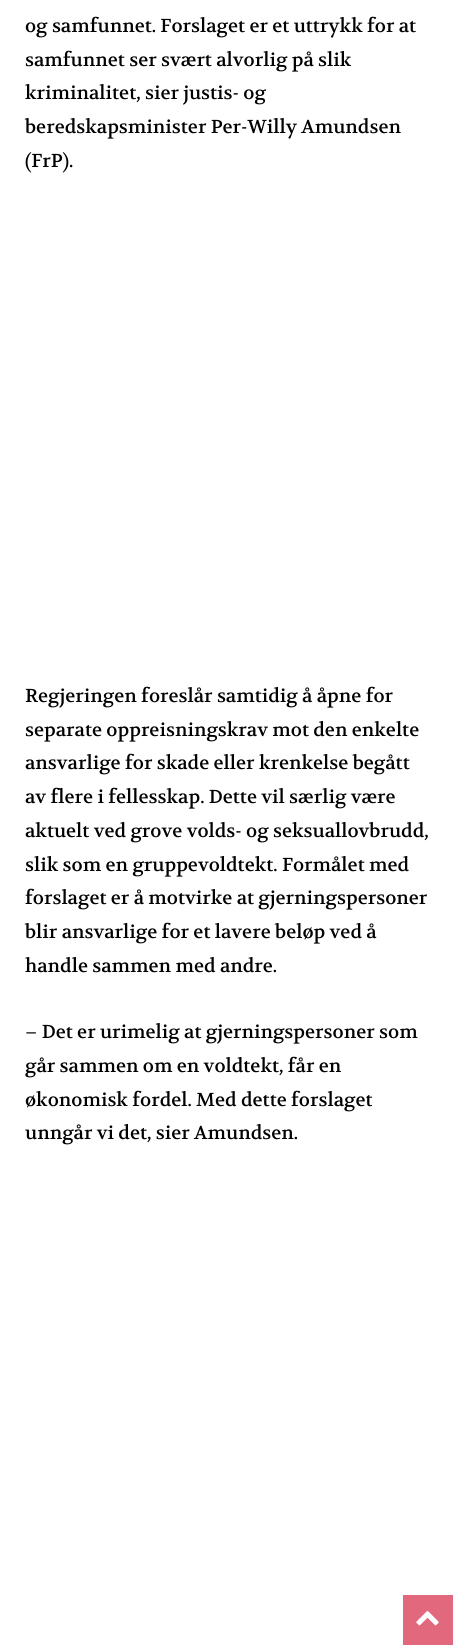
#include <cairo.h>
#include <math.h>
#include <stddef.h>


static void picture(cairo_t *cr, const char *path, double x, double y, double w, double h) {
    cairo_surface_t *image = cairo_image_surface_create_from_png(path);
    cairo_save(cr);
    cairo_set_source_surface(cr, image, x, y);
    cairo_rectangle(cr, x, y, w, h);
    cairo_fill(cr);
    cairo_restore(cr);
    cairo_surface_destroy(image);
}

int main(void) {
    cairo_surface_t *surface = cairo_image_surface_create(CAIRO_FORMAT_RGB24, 458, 1649);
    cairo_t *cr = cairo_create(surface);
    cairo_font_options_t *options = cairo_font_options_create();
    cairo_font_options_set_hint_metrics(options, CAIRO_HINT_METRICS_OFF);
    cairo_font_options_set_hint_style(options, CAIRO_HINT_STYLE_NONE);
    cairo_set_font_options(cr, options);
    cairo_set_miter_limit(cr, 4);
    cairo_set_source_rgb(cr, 1, 1, 1);
    cairo_paint(cr);
    cairo_select_font_face(cr, "Volkhov", CAIRO_FONT_SLANT_NORMAL, CAIRO_FONT_WEIGHT_NORMAL);
    cairo_set_font_size(cr, 18.75);
    cairo_set_source_rgb(cr, 0, 0, 0);
    cairo_move_to(cr, 25, 32);
    cairo_show_text(cr, "og samfunnet. Forslaget er et uttrykk for at");
    cairo_move_to(cr, 25, 66);
    cairo_show_text(cr, "samfunnet ser svært alvorlig på slik");
    cairo_move_to(cr, 25, 99);
    cairo_show_text(cr, "kriminalitet, sier justis- og");
    cairo_move_to(cr, 25, 133);
    cairo_show_text(cr, "beredskapsminister Per-Willy Amundsen");
    cairo_move_to(cr, 25, 167);
    cairo_show_text(cr, "(FrP).");
    cairo_move_to(cr, 25, 702);
    cairo_show_text(cr, "Regjeringen foreslår samtidig å åpne for");
    cairo_move_to(cr, 25, 736);
    cairo_show_text(cr, "separate oppreisningskrav mot den enkelte");
    cairo_move_to(cr, 25, 769);
    cairo_show_text(cr, "ansvarlige for skade eller krenkelse begått");
    cairo_move_to(cr, 25, 803);
    cairo_show_text(cr, "av flere i fellesskap. Dette vil særlig være");
    cairo_move_to(cr, 25, 837);
    cairo_show_text(cr, "aktuelt ved grove volds- og seksuallovbrudd,");
    cairo_move_to(cr, 25, 871);
    cairo_show_text(cr, "slik som en gruppevoldtekt. Formålet med");
    cairo_move_to(cr, 25, 904);
    cairo_show_text(cr, "forslaget er å motvirke at gjerningspersoner");
    cairo_move_to(cr, 25, 938);
    cairo_show_text(cr, "blir ansvarlige for et lavere beløp ved å");
    cairo_move_to(cr, 25, 972);
    cairo_show_text(cr, "handle sammen med andre.");
    cairo_move_to(cr, 25, 1038);
    cairo_show_text(cr, "– Det er urimelig at gjerningspersoner som");
    cairo_move_to(cr, 25, 1072);
    cairo_show_text(cr, "går sammen om en voldtekt, får en");
    cairo_move_to(cr, 25, 1106);
    cairo_show_text(cr, "økonomisk fordel. Med dette forslaget");
    cairo_move_to(cr, 25, 1139);
    cairo_show_text(cr, "unngår vi det, sier Amundsen.");
    cairo_set_source_rgb(cr, 0.886, 0.408, 0.494);
    cairo_rectangle(cr, 403, 1595, 50, 50);
    cairo_fill(cr);
    picture(cr, "img1.png", 416, 1611, 23, 15);
    cairo_surface_write_to_png(surface, "page.png");
    cairo_font_options_destroy(options);
    cairo_destroy(cr);
    cairo_surface_destroy(surface);
    return 0;
}
